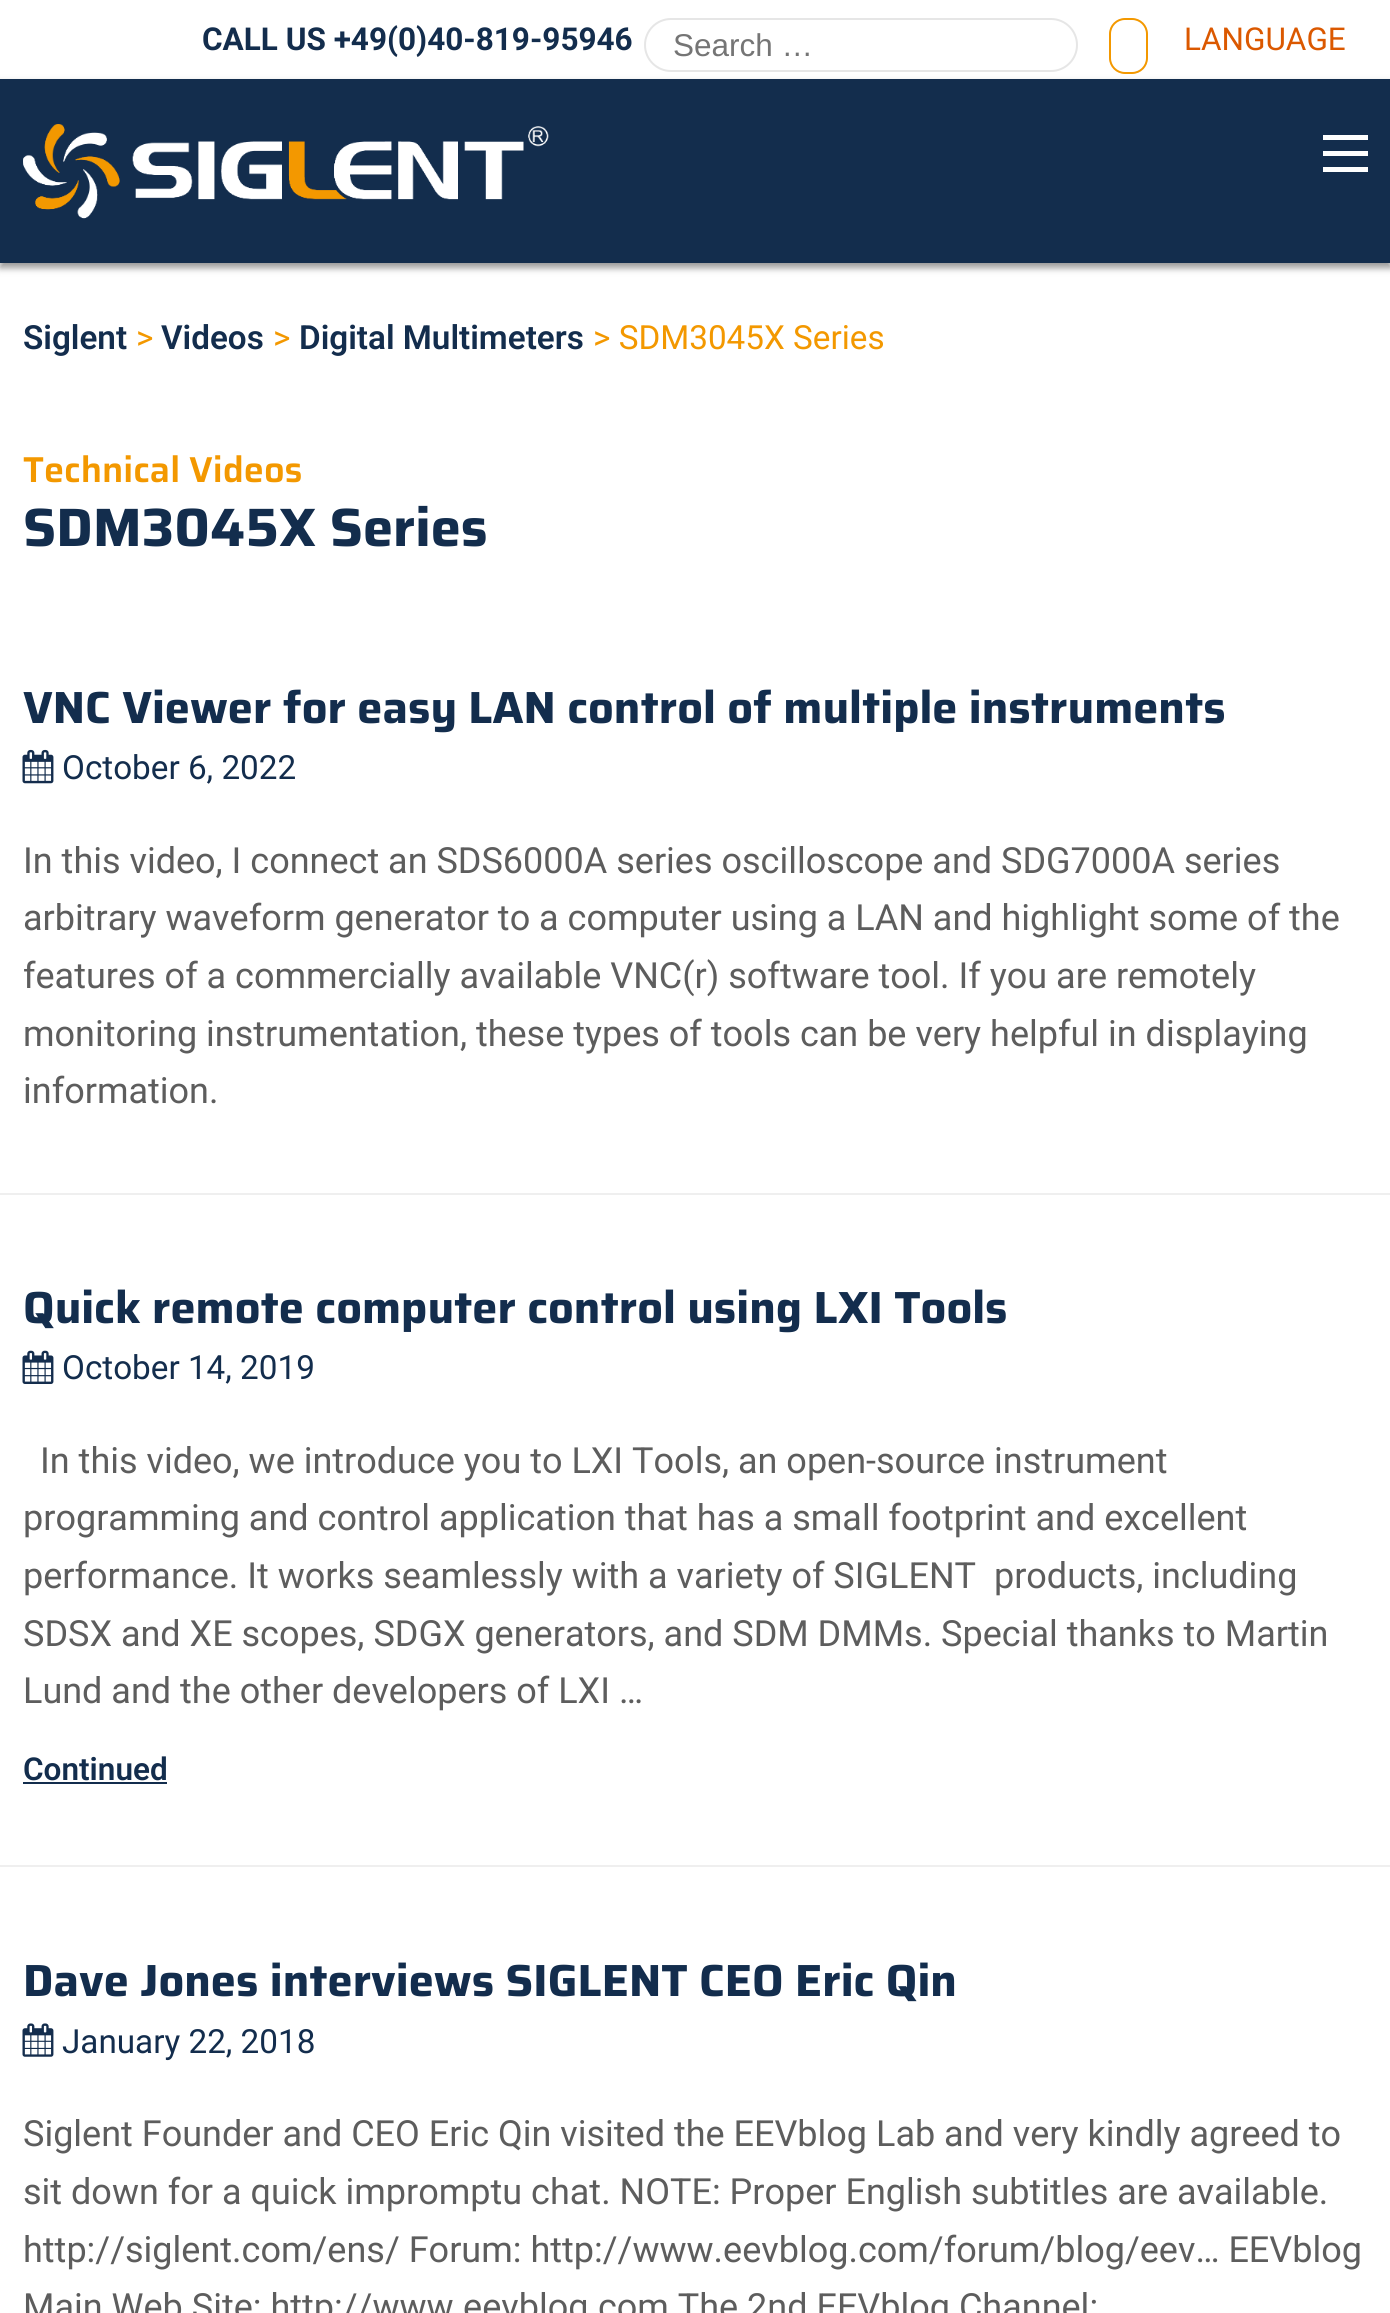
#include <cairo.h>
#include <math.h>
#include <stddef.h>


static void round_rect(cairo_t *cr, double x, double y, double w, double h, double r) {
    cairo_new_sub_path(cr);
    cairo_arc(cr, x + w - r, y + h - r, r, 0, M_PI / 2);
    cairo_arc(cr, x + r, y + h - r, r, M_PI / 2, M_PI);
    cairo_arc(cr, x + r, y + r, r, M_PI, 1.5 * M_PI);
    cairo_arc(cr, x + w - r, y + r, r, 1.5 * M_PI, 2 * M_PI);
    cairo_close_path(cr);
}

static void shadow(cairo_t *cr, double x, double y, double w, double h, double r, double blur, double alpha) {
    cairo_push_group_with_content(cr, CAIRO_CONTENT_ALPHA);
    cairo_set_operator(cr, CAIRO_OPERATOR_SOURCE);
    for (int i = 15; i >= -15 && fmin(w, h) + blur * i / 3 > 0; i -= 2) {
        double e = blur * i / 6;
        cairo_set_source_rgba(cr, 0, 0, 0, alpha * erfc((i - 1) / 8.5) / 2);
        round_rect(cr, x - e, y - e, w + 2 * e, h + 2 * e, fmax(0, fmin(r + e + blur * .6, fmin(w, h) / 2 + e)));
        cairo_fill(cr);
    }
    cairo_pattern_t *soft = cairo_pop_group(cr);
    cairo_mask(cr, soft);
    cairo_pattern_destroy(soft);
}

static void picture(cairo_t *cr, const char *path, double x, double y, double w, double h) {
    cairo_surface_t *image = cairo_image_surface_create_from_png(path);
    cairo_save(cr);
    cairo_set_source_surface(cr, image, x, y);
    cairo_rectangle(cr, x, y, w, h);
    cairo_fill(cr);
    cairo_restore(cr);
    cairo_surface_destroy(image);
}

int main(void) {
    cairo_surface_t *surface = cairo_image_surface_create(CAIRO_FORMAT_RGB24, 1390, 2313);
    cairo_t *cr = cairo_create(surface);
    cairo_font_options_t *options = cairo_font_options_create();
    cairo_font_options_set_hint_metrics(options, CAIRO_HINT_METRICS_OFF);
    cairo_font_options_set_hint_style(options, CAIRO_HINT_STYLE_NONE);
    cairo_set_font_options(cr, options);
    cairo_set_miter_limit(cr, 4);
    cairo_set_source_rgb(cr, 1, 1, 1);
    cairo_paint(cr);
    cairo_select_font_face(cr, "Roboto", CAIRO_FONT_SLANT_NORMAL, CAIRO_FONT_WEIGHT_BOLD);
    cairo_set_font_size(cr, 31.5);
    cairo_set_source_rgb(cr, 0.078, 0.176, 0.302);
    cairo_move_to(cr, 202, 50);
    cairo_show_text(cr, "CALL US +49(0)40-819-95946");
    round_rect(cr, 645, 19, 432, 52, 26);
    cairo_set_source_rgb(cr, 0.902, 0.902, 0.902);
    cairo_stroke(cr);
    cairo_select_font_face(cr, "Liberation Sans", CAIRO_FONT_SLANT_NORMAL, CAIRO_FONT_WEIGHT_NORMAL);
    cairo_set_source_rgb(cr, 0.459, 0.459, 0.459);
    cairo_move_to(cr, 673, 56);
    cairo_show_text(cr, "Search …");
    round_rect(cr, 1110, 19, 37, 54, 15);
    cairo_set_source_rgb(cr, 0.953, 0.596, 0);
    cairo_stroke(cr);
    cairo_select_font_face(cr, "Roboto", CAIRO_FONT_SLANT_NORMAL, CAIRO_FONT_WEIGHT_NORMAL);
    cairo_set_source_rgb(cr, 0.859, 0.345, 0);
    cairo_move_to(cr, 1184, 50);
    cairo_show_text(cr, "LANGUAGE");
    cairo_set_source_rgb(cr, 0, 0, 0);
    shadow(cr, 0, 83, 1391, 185, 0, 3.5, 0.4);
    cairo_set_source_rgb(cr, 0.078, 0.176, 0.302);
    cairo_rectangle(cr, 0, 79, 1390, 184);
    cairo_fill(cr);
    picture(cr, "img1.png", 23, 124, 526, 95);
    cairo_set_source_rgb(cr, 0.996, 0.996, 0.996);
    cairo_rectangle(cr, 1323, 167, 45, 5);
    cairo_fill(cr);
    cairo_rectangle(cr, 1323, 151, 45, 5);
    cairo_fill(cr);
    cairo_rectangle(cr, 1323, 135, 45, 5);
    cairo_fill(cr);
    cairo_select_font_face(cr, "Roboto SemiBold", CAIRO_FONT_SLANT_NORMAL, CAIRO_FONT_WEIGHT_NORMAL);
    cairo_set_font_size(cr, 33.25);
    cairo_set_source_rgb(cr, 0.078, 0.176, 0.302);
    cairo_move_to(cr, 23, 349);
    cairo_show_text(cr, "Siglent");
    cairo_select_font_face(cr, "Roboto", CAIRO_FONT_SLANT_NORMAL, CAIRO_FONT_WEIGHT_NORMAL);
    cairo_set_source_rgb(cr, 0.953, 0.596, 0);
    cairo_move_to(cr, 136, 349);
    cairo_show_text(cr, ">");
    cairo_select_font_face(cr, "Roboto SemiBold", CAIRO_FONT_SLANT_NORMAL, CAIRO_FONT_WEIGHT_NORMAL);
    cairo_set_source_rgb(cr, 0.078, 0.176, 0.302);
    cairo_move_to(cr, 161, 349);
    cairo_show_text(cr, "Videos");
    cairo_select_font_face(cr, "Roboto", CAIRO_FONT_SLANT_NORMAL, CAIRO_FONT_WEIGHT_NORMAL);
    cairo_set_source_rgb(cr, 0.953, 0.596, 0);
    cairo_move_to(cr, 273, 349);
    cairo_show_text(cr, ">");
    cairo_select_font_face(cr, "Roboto SemiBold", CAIRO_FONT_SLANT_NORMAL, CAIRO_FONT_WEIGHT_NORMAL);
    cairo_set_source_rgb(cr, 0.078, 0.176, 0.302);
    cairo_move_to(cr, 299, 349);
    cairo_show_text(cr, "Digital Multimeters");
    cairo_select_font_face(cr, "Roboto", CAIRO_FONT_SLANT_NORMAL, CAIRO_FONT_WEIGHT_NORMAL);
    cairo_set_source_rgb(cr, 0.953, 0.596, 0);
    cairo_move_to(cr, 593, 349);
    cairo_show_text(cr, "> SDM3045X Series");
    cairo_select_font_face(cr, "Saira SemiBold", CAIRO_FONT_SLANT_NORMAL, CAIRO_FONT_WEIGHT_NORMAL);
    cairo_set_font_size(cr, 36);
    cairo_move_to(cr, 23, 482);
    cairo_show_text(cr, "Technical Videos");
    cairo_select_font_face(cr, "Saira", CAIRO_FONT_SLANT_NORMAL, CAIRO_FONT_WEIGHT_BOLD);
    cairo_set_font_size(cr, 54);
    cairo_set_source_rgb(cr, 0.078, 0.176, 0.302);
    cairo_move_to(cr, 23, 546);
    cairo_show_text(cr, "SDM3045X Series");
    cairo_set_source_rgb(cr, 0.937, 0.937, 0.937);
    cairo_rectangle(cr, 0, 1193, 1390, 2);
    cairo_fill(cr);
    cairo_set_font_size(cr, 45);
    cairo_set_source_rgb(cr, 0.078, 0.176, 0.302);
    cairo_move_to(cr, 23, 723);
    cairo_show_text(cr, "VNC Viewer for easy LAN control of multiple instruments");
    picture(cr, "img2.png", 22, 749, 32, 35);
    cairo_select_font_face(cr, "Roboto", CAIRO_FONT_SLANT_NORMAL, CAIRO_FONT_WEIGHT_NORMAL);
    cairo_set_font_size(cr, 33.25);
    cairo_move_to(cr, 62, 779);
    cairo_show_text(cr, "October 6, 2022");
    cairo_set_font_size(cr, 36);
    cairo_set_source_rgb(cr, 0.365, 0.365, 0.365);
    cairo_move_to(cr, 23, 873);
    cairo_show_text(cr, "In this video, I connect an SDS6000A series oscilloscope and SDG7000A series");
    cairo_move_to(cr, 23, 930);
    cairo_show_text(cr, "arbitrary waveform generator to a computer using a LAN and highlight some of the");
    cairo_move_to(cr, 23, 988);
    cairo_show_text(cr, "features of a commercially available VNC(r) software tool. If you are remotely");
    cairo_move_to(cr, 23, 1046);
    cairo_show_text(cr, "monitoring instrumentation, these types of tools can be very helpful in displaying");
    cairo_move_to(cr, 23, 1103);
    cairo_show_text(cr, "information.");
    cairo_set_source_rgb(cr, 0.937, 0.937, 0.937);
    cairo_rectangle(cr, 0, 1865, 1390, 2);
    cairo_fill(cr);
    cairo_select_font_face(cr, "Saira", CAIRO_FONT_SLANT_NORMAL, CAIRO_FONT_WEIGHT_BOLD);
    cairo_set_font_size(cr, 45);
    cairo_set_source_rgb(cr, 0.078, 0.176, 0.302);
    cairo_move_to(cr, 23, 1323);
    cairo_show_text(cr, "Quick remote computer control using LXI Tools");
    picture(cr, "img3.png", 22, 1350, 32, 34);
    cairo_select_font_face(cr, "Roboto", CAIRO_FONT_SLANT_NORMAL, CAIRO_FONT_WEIGHT_NORMAL);
    cairo_set_font_size(cr, 33.25);
    cairo_move_to(cr, 62, 1379);
    cairo_show_text(cr, "October 14, 2019");
    cairo_set_font_size(cr, 36);
    cairo_set_source_rgb(cr, 0.365, 0.365, 0.365);
    cairo_move_to(cr, 40, 1473);
    cairo_show_text(cr, "In this video, we introduce you to LXI Tools, an open-source instrument");
    cairo_move_to(cr, 23, 1530);
    cairo_show_text(cr, "programming and control application that has a small footprint and excellent");
    cairo_move_to(cr, 23, 1588);
    cairo_show_text(cr, "performance. It works seamlessly with a variety of SIGLENT  products, including");
    cairo_move_to(cr, 23, 1646);
    cairo_show_text(cr, "SDSX and XE scopes, SDGX generators, and SDM DMMs. Special thanks to Martin");
    cairo_move_to(cr, 23, 1703);
    cairo_show_text(cr, "Lund and the other developers of LXI …");
    cairo_select_font_face(cr, "Roboto SemiBold", CAIRO_FONT_SLANT_NORMAL, CAIRO_FONT_WEIGHT_NORMAL);
    cairo_set_font_size(cr, 31.5);
    cairo_set_source_rgb(cr, 0.078, 0.176, 0.302);
    cairo_move_to(cr, 23, 1780);
    cairo_show_text(cr, "Continued");
    cairo_rectangle(cr, 23, 1782, 144, 2);
    cairo_fill(cr);
    cairo_select_font_face(cr, "Saira", CAIRO_FONT_SLANT_NORMAL, CAIRO_FONT_WEIGHT_BOLD);
    cairo_set_font_size(cr, 45);
    cairo_move_to(cr, 23, 1996);
    cairo_show_text(cr, "Dave Jones interviews SIGLENT CEO Eric Qin");
    picture(cr, "img4.png", 22, 2023, 32, 34);
    cairo_select_font_face(cr, "Roboto", CAIRO_FONT_SLANT_NORMAL, CAIRO_FONT_WEIGHT_NORMAL);
    cairo_set_font_size(cr, 33.25);
    cairo_move_to(cr, 62, 2053);
    cairo_show_text(cr, "January 22, 2018");
    cairo_set_font_size(cr, 36);
    cairo_set_source_rgb(cr, 0.365, 0.365, 0.365);
    cairo_move_to(cr, 23, 2146);
    cairo_show_text(cr, "Siglent Founder and CEO Eric Qin visited the EEVblog Lab and very kindly agreed to");
    cairo_move_to(cr, 23, 2204);
    cairo_show_text(cr, "sit down for a quick impromptu chat. NOTE: Proper English subtitles are available.");
    cairo_move_to(cr, 23, 2262);
    cairo_show_text(cr, "http://siglent.com/ens/ Forum: http://www.eevblog.com/forum/blog/eev… EEVblog");
    cairo_move_to(cr, 23, 2319);
    cairo_show_text(cr, "Main Web Site: http://www.eevblog.com The 2nd EEVblog Channel:");
    cairo_surface_write_to_png(surface, "page.png");
    cairo_font_options_destroy(options);
    cairo_destroy(cr);
    cairo_surface_destroy(surface);
    return 0;
}
